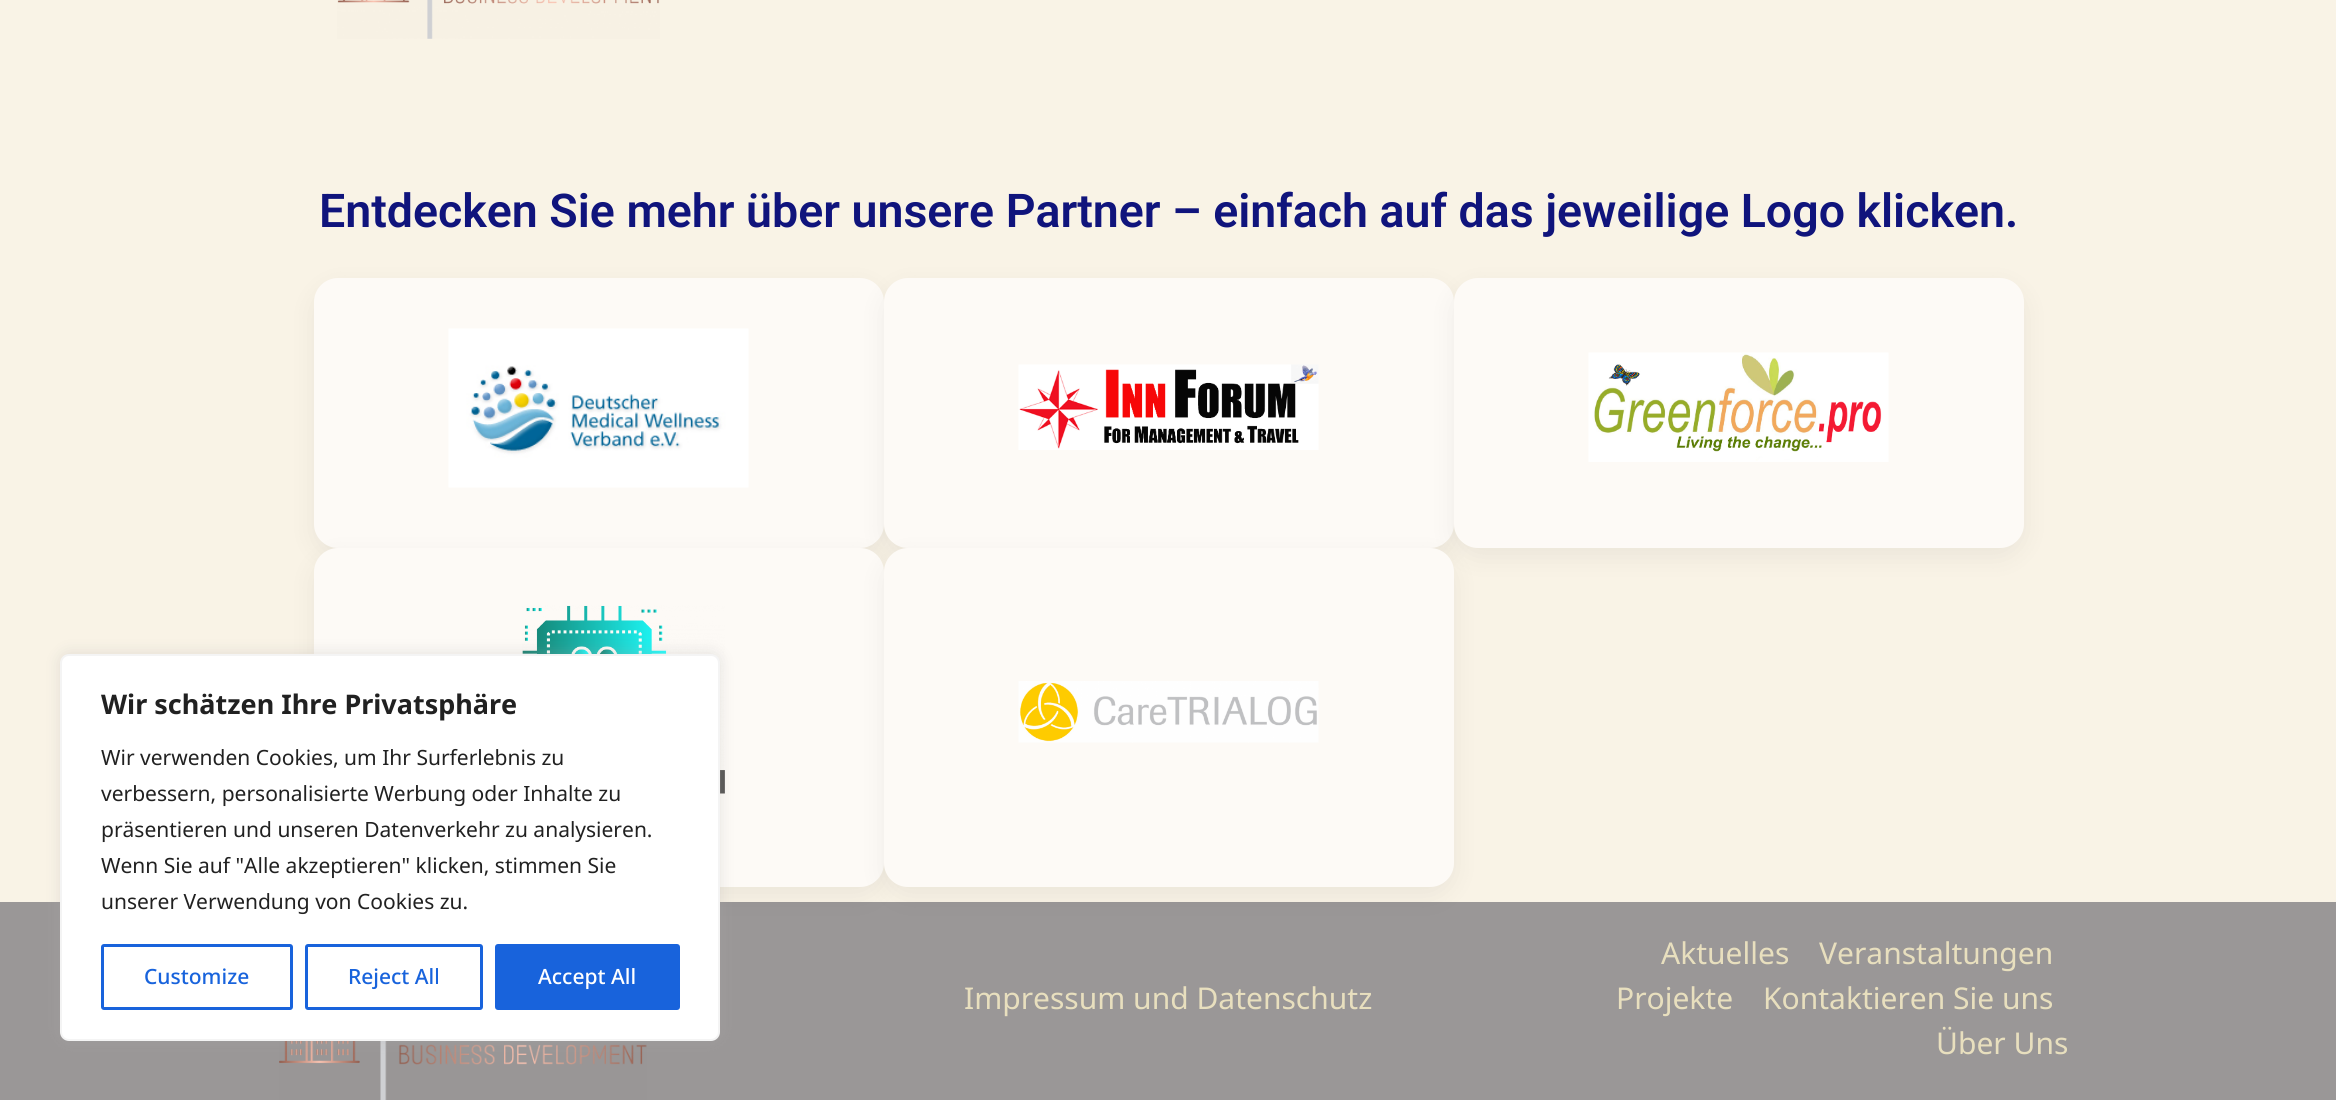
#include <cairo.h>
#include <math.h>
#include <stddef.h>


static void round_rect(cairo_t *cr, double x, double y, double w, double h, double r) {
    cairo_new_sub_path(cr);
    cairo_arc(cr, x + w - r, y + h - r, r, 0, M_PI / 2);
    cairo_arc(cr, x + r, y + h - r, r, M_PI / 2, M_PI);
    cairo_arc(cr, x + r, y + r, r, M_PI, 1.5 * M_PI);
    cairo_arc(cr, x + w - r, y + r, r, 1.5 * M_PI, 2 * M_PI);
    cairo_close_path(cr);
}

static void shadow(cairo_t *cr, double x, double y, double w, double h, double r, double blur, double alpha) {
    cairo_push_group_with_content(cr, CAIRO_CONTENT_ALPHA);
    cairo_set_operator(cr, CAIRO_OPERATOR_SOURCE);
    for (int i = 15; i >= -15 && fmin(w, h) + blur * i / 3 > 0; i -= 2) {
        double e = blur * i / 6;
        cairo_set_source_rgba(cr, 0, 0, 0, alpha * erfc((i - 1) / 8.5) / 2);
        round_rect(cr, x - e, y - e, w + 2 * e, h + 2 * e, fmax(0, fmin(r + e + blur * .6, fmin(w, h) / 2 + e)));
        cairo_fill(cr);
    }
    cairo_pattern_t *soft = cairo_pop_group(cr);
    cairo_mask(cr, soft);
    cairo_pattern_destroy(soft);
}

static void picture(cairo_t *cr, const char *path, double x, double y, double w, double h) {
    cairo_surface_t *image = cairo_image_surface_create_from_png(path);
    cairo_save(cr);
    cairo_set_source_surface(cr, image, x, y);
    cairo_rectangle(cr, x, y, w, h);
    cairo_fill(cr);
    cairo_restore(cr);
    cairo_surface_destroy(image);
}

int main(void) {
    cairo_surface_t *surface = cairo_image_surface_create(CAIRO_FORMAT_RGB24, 2336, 1100);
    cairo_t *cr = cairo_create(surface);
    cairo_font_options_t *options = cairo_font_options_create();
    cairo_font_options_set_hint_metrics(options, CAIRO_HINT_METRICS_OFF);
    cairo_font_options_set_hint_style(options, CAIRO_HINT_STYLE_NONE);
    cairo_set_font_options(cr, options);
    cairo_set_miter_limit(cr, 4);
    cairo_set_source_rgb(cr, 0.973, 0.953, 0.902);
    cairo_paint(cr);
    picture(cr, "img1.png", 337, 0, 323, 39);
    cairo_select_font_face(cr, "Roboto SemiBold", CAIRO_FONT_SLANT_NORMAL, CAIRO_FONT_WEIGHT_NORMAL);
    cairo_set_font_size(cr, 46.5);
    cairo_set_source_rgb(cr, 0.063, 0.082, 0.486);
    cairo_move_to(cr, 319, 227);
    cairo_show_text(cr, "Entdecken Sie mehr über unsere Partner – einfach auf das jeweilige Logo klicken.");
    cairo_set_source_rgb(cr, 0, 0, 0);
    shadow(cr, 314, 287, 570, 270, 24, 13.5, 0.06);
    cairo_set_source_rgb(cr, 0.992, 0.98, 0.961);
    round_rect(cr, 314, 278, 570, 270, 24);
    cairo_fill(cr);
    picture(cr, "img2.png", 448, 328, 301, 160);
    cairo_set_source_rgb(cr, 0, 0, 0);
    shadow(cr, 884, 287, 570, 270, 24, 13.5, 0.06);
    cairo_set_source_rgb(cr, 0.992, 0.98, 0.961);
    round_rect(cr, 884, 278, 570, 270, 24);
    cairo_fill(cr);
    picture(cr, "img3.png", 1018, 364, 301, 86);
    cairo_set_source_rgb(cr, 0, 0, 0);
    shadow(cr, 1454, 287, 570, 270, 24, 13.5, 0.06);
    cairo_set_source_rgb(cr, 0.992, 0.98, 0.961);
    round_rect(cr, 1454, 278, 570, 270, 24);
    cairo_fill(cr);
    picture(cr, "img4.png", 1588, 352, 301, 110);
    cairo_set_source_rgb(cr, 0.604, 0.592, 0.592);
    cairo_rectangle(cr, 0, 902, 2336, 198);
    cairo_fill(cr);
    cairo_set_source_rgb(cr, 0, 0, 0);
    shadow(cr, 314, 557, 570, 339, 24, 13.5, 0.06);
    cairo_set_source_rgb(cr, 0.992, 0.98, 0.961);
    round_rect(cr, 314, 548, 570, 339, 24);
    cairo_fill(cr);
    picture(cr, "img5.png", 522, 605, 203, 189);
    cairo_set_source_rgb(cr, 0, 0, 0);
    shadow(cr, 884, 557, 570, 339, 24, 13.5, 0.06);
    cairo_set_source_rgb(cr, 0.992, 0.98, 0.961);
    round_rect(cr, 884, 548, 570, 339, 24);
    cairo_fill(cr);
    picture(cr, "img6.png", 1018, 681, 301, 62);
    cairo_select_font_face(cr, "Noto Sans", CAIRO_FONT_SLANT_NORMAL, CAIRO_FONT_WEIGHT_NORMAL);
    cairo_set_font_size(cr, 30);
    cairo_set_source_rgb(cr, 0.91, 0.875, 0.745);
    cairo_move_to(cr, 964, 1009);
    cairo_show_text(cr, "Impressum und Datenschutz");
    cairo_move_to(cr, 1661, 964);
    cairo_show_text(cr, "Aktuelles");
    cairo_move_to(cr, 1819, 964);
    cairo_show_text(cr, "Veranstaltungen");
    cairo_move_to(cr, 1616, 1009);
    cairo_show_text(cr, "Projekte");
    cairo_move_to(cr, 1763, 1009);
    cairo_show_text(cr, "Kontaktieren Sie uns");
    cairo_move_to(cr, 1936, 1054);
    cairo_show_text(cr, "Über Uns");
    picture(cr, "img7.png", 279, 1041, 368, 59);
    cairo_set_source_rgb(cr, 0.675, 0.671, 0.671);
    shadow(cr, 60, 653, 660, 387, 9, 7.5, 0.3);
    cairo_set_source_rgb(cr, 1, 1, 1);
    round_rect(cr, 61, 655, 658, 385, 8);
    cairo_fill_preserve(cr);
    cairo_set_source_rgb(cr, 0.957, 0.957, 0.957);
    cairo_stroke(cr);
    cairo_select_font_face(cr, "Noto Sans", CAIRO_FONT_SLANT_NORMAL, CAIRO_FONT_WEIGHT_BOLD);
    cairo_set_font_size(cr, 27);
    cairo_set_source_rgb(cr, 0.129, 0.129, 0.129);
    cairo_move_to(cr, 101, 714);
    cairo_show_text(cr, "Wir schätzen Ihre Privatsphäre");
    cairo_select_font_face(cr, "Noto Sans", CAIRO_FONT_SLANT_NORMAL, CAIRO_FONT_WEIGHT_NORMAL);
    cairo_set_font_size(cr, 21);
    cairo_move_to(cr, 101, 765);
    cairo_show_text(cr, "Wir verwenden Cookies, um Ihr Surferlebnis zu");
    cairo_move_to(cr, 101, 801);
    cairo_show_text(cr, "verbessern, personalisierte Werbung oder Inhalte zu");
    cairo_move_to(cr, 101, 837);
    cairo_show_text(cr, "präsentieren und unseren Datenverkehr zu analysieren.");
    cairo_move_to(cr, 101, 873);
    cairo_show_text(cr, "Wenn Sie auf \"Alle akzeptieren\" klicken, stimmen Sie");
    cairo_move_to(cr, 101, 909);
    cairo_show_text(cr, "unserer Verwendung von Cookies zu.");
    round_rect(cr, 102.5, 945.5, 189, 63, 1.5);
    cairo_set_source_rgb(cr, 0.094, 0.388, 0.863);
    cairo_set_line_width(cr, 3);
    cairo_stroke(cr);
    cairo_select_font_face(cr, "Noto Sans Medium", CAIRO_FONT_SLANT_NORMAL, CAIRO_FONT_WEIGHT_NORMAL);
    cairo_move_to(cr, 144, 984);
    cairo_show_text(cr, "Customize");
    round_rect(cr, 306.5, 945.5, 175, 63, 1.5);
    cairo_stroke(cr);
    cairo_move_to(cr, 348, 984);
    cairo_show_text(cr, "Reject All");
    round_rect(cr, 496.5, 945.5, 182, 63, 1.5);
    cairo_fill_preserve(cr);
    cairo_stroke(cr);
    cairo_set_source_rgb(cr, 1, 1, 1);
    cairo_move_to(cr, 538, 984);
    cairo_show_text(cr, "Accept All");
    cairo_surface_write_to_png(surface, "page.png");
    cairo_font_options_destroy(options);
    cairo_destroy(cr);
    cairo_surface_destroy(surface);
    return 0;
}
